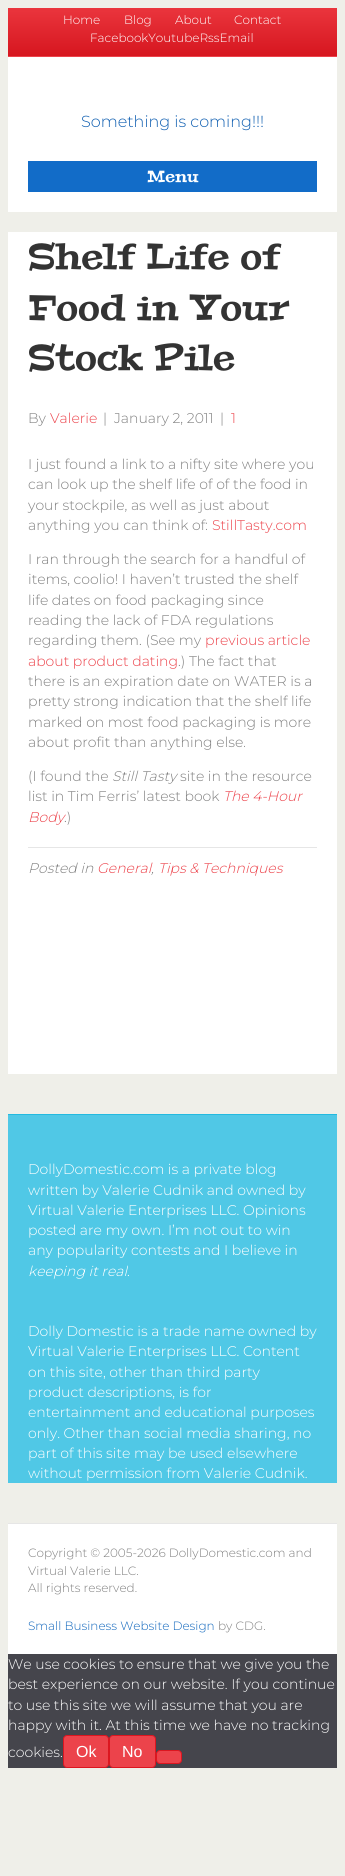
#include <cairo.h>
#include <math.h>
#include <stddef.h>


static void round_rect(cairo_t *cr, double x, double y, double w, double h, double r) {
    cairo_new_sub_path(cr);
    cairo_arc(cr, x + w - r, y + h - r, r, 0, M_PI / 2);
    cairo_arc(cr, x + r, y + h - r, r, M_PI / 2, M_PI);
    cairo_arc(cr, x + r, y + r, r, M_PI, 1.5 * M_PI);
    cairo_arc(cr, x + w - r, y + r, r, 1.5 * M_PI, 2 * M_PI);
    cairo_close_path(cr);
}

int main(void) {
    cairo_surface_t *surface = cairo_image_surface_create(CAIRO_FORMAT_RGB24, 345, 1876);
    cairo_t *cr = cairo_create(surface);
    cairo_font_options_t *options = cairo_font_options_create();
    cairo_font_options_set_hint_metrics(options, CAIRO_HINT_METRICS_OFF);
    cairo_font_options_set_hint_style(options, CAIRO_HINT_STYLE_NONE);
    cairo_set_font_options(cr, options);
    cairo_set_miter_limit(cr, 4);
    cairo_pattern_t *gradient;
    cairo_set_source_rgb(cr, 0.937, 0.937, 0.914);
    cairo_paint(cr);
    gradient = cairo_pattern_create_linear(173, 8, 173, 56);
    cairo_pattern_add_color_stop_rgba(gradient, 0, 0.918, 0.208, 0.239, 1);
    cairo_pattern_add_color_stop_rgba(gradient, 1, 0.839, 0.086, 0.122, 1);
    cairo_set_source(cr, gradient);
    cairo_pattern_destroy(gradient);
    cairo_rectangle(cr, 8, 8, 329, 48);
    cairo_fill(cr);
    cairo_set_source_rgb(cr, 0.925, 0.263, 0.294);
    cairo_rectangle(cr, 8, 56, 329, 1);
    cairo_fill(cr);
    cairo_select_font_face(cr, "Montserrat Light", CAIRO_FONT_SLANT_NORMAL, CAIRO_FONT_WEIGHT_NORMAL);
    cairo_set_font_size(cr, 12);
    cairo_set_source_rgb(cr, 1, 1, 1);
    cairo_move_to(cr, 63, 24);
    cairo_show_text(cr, "Home");
    cairo_move_to(cr, 124, 24);
    cairo_show_text(cr, "Blog");
    cairo_move_to(cr, 175, 24);
    cairo_show_text(cr, "About");
    cairo_move_to(cr, 234, 24);
    cairo_show_text(cr, "Contact");
    cairo_move_to(cr, 90, 42);
    cairo_show_text(cr, "FacebookYoutubeRssEmail");
    cairo_rectangle(cr, 8, 57, 329, 155);
    cairo_fill(cr);
    cairo_set_font_size(cr, 16);
    cairo_set_source_rgb(cr, 0.063, 0.373, 0.694);
    cairo_move_to(cr, 81, 127);
    cairo_show_text(cr, "Something is coming!!!");
    cairo_set_source_rgb(cr, 0.071, 0.424, 0.784);
    cairo_rectangle(cr, 28, 161, 289, 31);
    cairo_fill(cr);
    cairo_select_font_face(cr, "Peralta", CAIRO_FONT_SLANT_NORMAL, CAIRO_FONT_WEIGHT_NORMAL);
    cairo_set_source_rgb(cr, 1, 1, 1);
    cairo_move_to(cr, 147, 182);
    cairo_show_text(cr, "Menu");
    cairo_rectangle(cr, 8, 232, 329, 842);
    cairo_fill(cr);
    cairo_set_font_size(cr, 36);
    cairo_set_source_rgb(cr, 0.2, 0.2, 0.2);
    cairo_move_to(cr, 28, 269);
    cairo_show_text(cr, "Shelf Life of");
    cairo_move_to(cr, 28, 320);
    cairo_show_text(cr, "Food in Your");
    cairo_move_to(cr, 28, 370);
    cairo_show_text(cr, "Stock Pile");
    cairo_select_font_face(cr, "Montserrat Light", CAIRO_FONT_SLANT_NORMAL, CAIRO_FONT_WEIGHT_NORMAL);
    cairo_set_font_size(cr, 14);
    cairo_set_source_rgb(cr, 0.502, 0.502, 0.502);
    cairo_move_to(cr, 28, 423);
    cairo_show_text(cr, "By");
    cairo_set_source_rgb(cr, 0.925, 0.263, 0.294);
    cairo_move_to(cr, 50, 423);
    cairo_show_text(cr, "Valerie");
    cairo_set_source_rgb(cr, 0.502, 0.502, 0.502);
    cairo_move_to(cr, 103, 423);
    cairo_show_text(cr, "|");
    cairo_move_to(cr, 114, 423);
    cairo_show_text(cr, "January 2, 2011");
    cairo_move_to(cr, 220, 423);
    cairo_show_text(cr, "|");
    cairo_set_source_rgb(cr, 0.925, 0.263, 0.294);
    cairo_move_to(cr, 231, 423);
    cairo_show_text(cr, "1");
    cairo_set_source_rgb(cr, 0.502, 0.502, 0.502);
    cairo_move_to(cr, 28, 469);
    cairo_show_text(cr, "I just found a link to a nifty site where you");
    cairo_move_to(cr, 28, 489);
    cairo_show_text(cr, "can look up the shelf life of of the food in");
    cairo_move_to(cr, 28, 510);
    cairo_show_text(cr, "your stockpile, as well as just about");
    cairo_move_to(cr, 28, 530);
    cairo_show_text(cr, "anything you can think of:");
    cairo_set_source_rgb(cr, 0.925, 0.263, 0.294);
    cairo_move_to(cr, 212, 530);
    cairo_show_text(cr, "StillTasty.com");
    cairo_set_source_rgb(cr, 0.502, 0.502, 0.502);
    cairo_move_to(cr, 28, 564);
    cairo_show_text(cr, "I ran through the search for a handful of");
    cairo_move_to(cr, 28, 584);
    cairo_show_text(cr, "items, coolio! I haven’t trusted the shelf");
    cairo_move_to(cr, 28, 605);
    cairo_show_text(cr, "life dates on food packaging since");
    cairo_move_to(cr, 28, 625);
    cairo_show_text(cr, "reading the lack of FDA regulations");
    cairo_move_to(cr, 28, 645);
    cairo_show_text(cr, "regarding them. (See my");
    cairo_set_source_rgb(cr, 0.925, 0.263, 0.294);
    cairo_move_to(cr, 205, 645);
    cairo_show_text(cr, "previous article");
    cairo_move_to(cr, 28, 666);
    cairo_show_text(cr, "about product dating");
    cairo_set_source_rgb(cr, 0.502, 0.502, 0.502);
    cairo_move_to(cr, 178, 666);
    cairo_show_text(cr, ".) The fact that");
    cairo_move_to(cr, 28, 686);
    cairo_show_text(cr, "there is an expiration date on WATER is a");
    cairo_move_to(cr, 28, 706);
    cairo_show_text(cr, "pretty strong indication that the shelf life");
    cairo_move_to(cr, 28, 727);
    cairo_show_text(cr, "marked on most food packaging is more");
    cairo_move_to(cr, 28, 747);
    cairo_show_text(cr, "about profit than anything else.");
    cairo_move_to(cr, 28, 781);
    cairo_show_text(cr, "(I found the");
    cairo_select_font_face(cr, "Montserrat Light", CAIRO_FONT_SLANT_ITALIC, CAIRO_FONT_WEIGHT_NORMAL);
    cairo_move_to(cr, 112, 781);
    cairo_show_text(cr, "Still Tasty");
    cairo_select_font_face(cr, "Montserrat Light", CAIRO_FONT_SLANT_NORMAL, CAIRO_FONT_WEIGHT_NORMAL);
    cairo_move_to(cr, 180, 781);
    cairo_show_text(cr, "site in the resource");
    cairo_move_to(cr, 28, 801);
    cairo_show_text(cr, "list in Tim Ferris’ latest book");
    cairo_select_font_face(cr, "Montserrat Light", CAIRO_FONT_SLANT_ITALIC, CAIRO_FONT_WEIGHT_NORMAL);
    cairo_set_source_rgb(cr, 0.925, 0.263, 0.294);
    cairo_move_to(cr, 223, 801);
    cairo_show_text(cr, "The 4-Hour");
    cairo_move_to(cr, 28, 822);
    cairo_show_text(cr, "Body");
    cairo_select_font_face(cr, "Montserrat Light", CAIRO_FONT_SLANT_NORMAL, CAIRO_FONT_WEIGHT_NORMAL);
    cairo_set_source_rgb(cr, 0.502, 0.502, 0.502);
    cairo_move_to(cr, 64, 822);
    cairo_show_text(cr, ".)");
    cairo_set_source_rgb(cr, 0.902, 0.902, 0.902);
    cairo_rectangle(cr, 28, 847, 289, 1);
    cairo_fill(cr);
    cairo_select_font_face(cr, "Montserrat Light", CAIRO_FONT_SLANT_ITALIC, CAIRO_FONT_WEIGHT_NORMAL);
    cairo_set_source_rgb(cr, 0.502, 0.502, 0.502);
    cairo_move_to(cr, 28, 873);
    cairo_show_text(cr, "Posted in");
    cairo_set_source_rgb(cr, 0.925, 0.263, 0.294);
    cairo_move_to(cr, 97, 873);
    cairo_show_text(cr, "General");
    cairo_move_to(cr, 158, 873);
    cairo_show_text(cr, "Tips & Techniques");
    cairo_set_source_rgb(cr, 0.502, 0.502, 0.502);
    cairo_move_to(cr, 151, 873);
    cairo_show_text(cr, ",");
    cairo_set_source_rgb(cr, 0.314, 0.784, 0.902);
    cairo_rectangle(cr, 8, 1115, 329, 368);
    cairo_fill(cr);
    cairo_set_source_rgb(cr, 0.137, 0.729, 0.878);
    cairo_rectangle(cr, 8, 1114, 329, 1);
    cairo_fill(cr);
    cairo_select_font_face(cr, "Montserrat Light", CAIRO_FONT_SLANT_NORMAL, CAIRO_FONT_WEIGHT_NORMAL);
    cairo_set_source_rgb(cr, 1, 1, 1);
    cairo_move_to(cr, 28, 1174);
    cairo_show_text(cr, "DollyDomestic.com is a private blog");
    cairo_move_to(cr, 28, 1195);
    cairo_show_text(cr, "written by Valerie Cudnik and owned by");
    cairo_move_to(cr, 28, 1215);
    cairo_show_text(cr, "Virtual Valerie Enterprises LLC. Opinions");
    cairo_move_to(cr, 28, 1235);
    cairo_show_text(cr, "posted are my own. I’m not out to win");
    cairo_move_to(cr, 28, 1255);
    cairo_show_text(cr, "any popularity contests and I believe in");
    cairo_select_font_face(cr, "Montserrat Light", CAIRO_FONT_SLANT_ITALIC, CAIRO_FONT_WEIGHT_NORMAL);
    cairo_move_to(cr, 28, 1276);
    cairo_show_text(cr, "keeping it real");
    cairo_select_font_face(cr, "Montserrat Light", CAIRO_FONT_SLANT_NORMAL, CAIRO_FONT_WEIGHT_NORMAL);
    cairo_move_to(cr, 127, 1276);
    cairo_show_text(cr, ".");
    cairo_move_to(cr, 28, 1336);
    cairo_show_text(cr, "Dolly Domestic is a trade name owned by");
    cairo_move_to(cr, 28, 1356);
    cairo_show_text(cr, "Virtual Valerie Enterprises LLC. Content");
    cairo_move_to(cr, 28, 1377);
    cairo_show_text(cr, "on this site, other than third party");
    cairo_move_to(cr, 28, 1397);
    cairo_show_text(cr, "product descriptions, is for");
    cairo_move_to(cr, 28, 1417);
    cairo_show_text(cr, "entertainment and educational purposes");
    cairo_move_to(cr, 28, 1438);
    cairo_show_text(cr, "only. Other than social media sharing, no");
    cairo_move_to(cr, 28, 1458);
    cairo_show_text(cr, "part of this site may be used elsewhere");
    cairo_move_to(cr, 28, 1478);
    cairo_show_text(cr, "without permission from Valerie Cudnik.");
    cairo_rectangle(cr, 8, 1524, 329, 130);
    cairo_fill(cr);
    cairo_set_source_rgb(cr, 0.902, 0.902, 0.902);
    cairo_rectangle(cr, 8, 1523, 329, 1);
    cairo_fill(cr);
    cairo_set_font_size(cr, 12);
    cairo_set_source_rgb(cr, 0.502, 0.502, 0.502);
    cairo_move_to(cr, 28, 1557);
    cairo_show_text(cr, "Copyright © 2005-2026 DollyDomestic.com and");
    cairo_move_to(cr, 28, 1575);
    cairo_show_text(cr, "Virtual Valerie LLC.");
    cairo_move_to(cr, 28, 1592);
    cairo_show_text(cr, "All rights reserved.");
    cairo_set_source_rgb(cr, 0.055, 0.396, 0.737);
    cairo_move_to(cr, 28, 1630);
    cairo_show_text(cr, "Small Business Website Design");
    cairo_set_source_rgb(cr, 0.502, 0.502, 0.502);
    cairo_move_to(cr, 218, 1630);
    cairo_show_text(cr, "by CDG.");
    cairo_set_source_rgb(cr, 0.271, 0.271, 0.298);
    cairo_rectangle(cr, 8, 1654, 329, 114);
    cairo_fill(cr);
    cairo_set_font_size(cr, 14);
    cairo_set_source_rgb(cr, 1, 1, 1);
    cairo_move_to(cr, 8, 1669);
    cairo_show_text(cr, "We use cookies to ensure that we give you the");
    cairo_move_to(cr, 8, 1689);
    cairo_show_text(cr, "best experience on our website. If you continue");
    cairo_move_to(cr, 8, 1710);
    cairo_show_text(cr, "to use this site we will assume that you are");
    cairo_move_to(cr, 8, 1730);
    cairo_show_text(cr, "happy with it. At this time we have no tracking");
    cairo_move_to(cr, 8, 1757);
    cairo_show_text(cr, "cookies.");
    cairo_set_source_rgb(cr, 0.925, 0.263, 0.294);
    round_rect(cr, 63.5, 1735.5, 45, 32, 3.5);
    cairo_fill_preserve(cr);
    cairo_set_source_rgb(cr, 0.863, 0.086, 0.125);
    cairo_set_line_width(cr, 1);
    cairo_stroke(cr);
    cairo_select_font_face(cr, "Liberation Sans", CAIRO_FONT_SLANT_NORMAL, CAIRO_FONT_WEIGHT_NORMAL);
    cairo_set_font_size(cr, 16);
    cairo_set_source_rgb(cr, 1, 1, 1);
    cairo_move_to(cr, 76, 1757);
    cairo_show_text(cr, "Ok");
    cairo_set_source_rgb(cr, 0.925, 0.263, 0.294);
    round_rect(cr, 109.5, 1735.5, 46, 32, 3.5);
    cairo_fill_preserve(cr);
    cairo_set_source_rgb(cr, 0.863, 0.086, 0.125);
    cairo_stroke(cr);
    cairo_set_source_rgb(cr, 1, 1, 1);
    cairo_move_to(cr, 122, 1757);
    cairo_show_text(cr, "No");
    cairo_set_source_rgb(cr, 0.925, 0.263, 0.294);
    round_rect(cr, 156.5, 1750.5, 25, 13, 3.5);
    cairo_fill_preserve(cr);
    cairo_set_source_rgb(cr, 0.863, 0.086, 0.125);
    cairo_stroke(cr);
    cairo_surface_write_to_png(surface, "page.png");
    cairo_font_options_destroy(options);
    cairo_destroy(cr);
    cairo_surface_destroy(surface);
    return 0;
}
